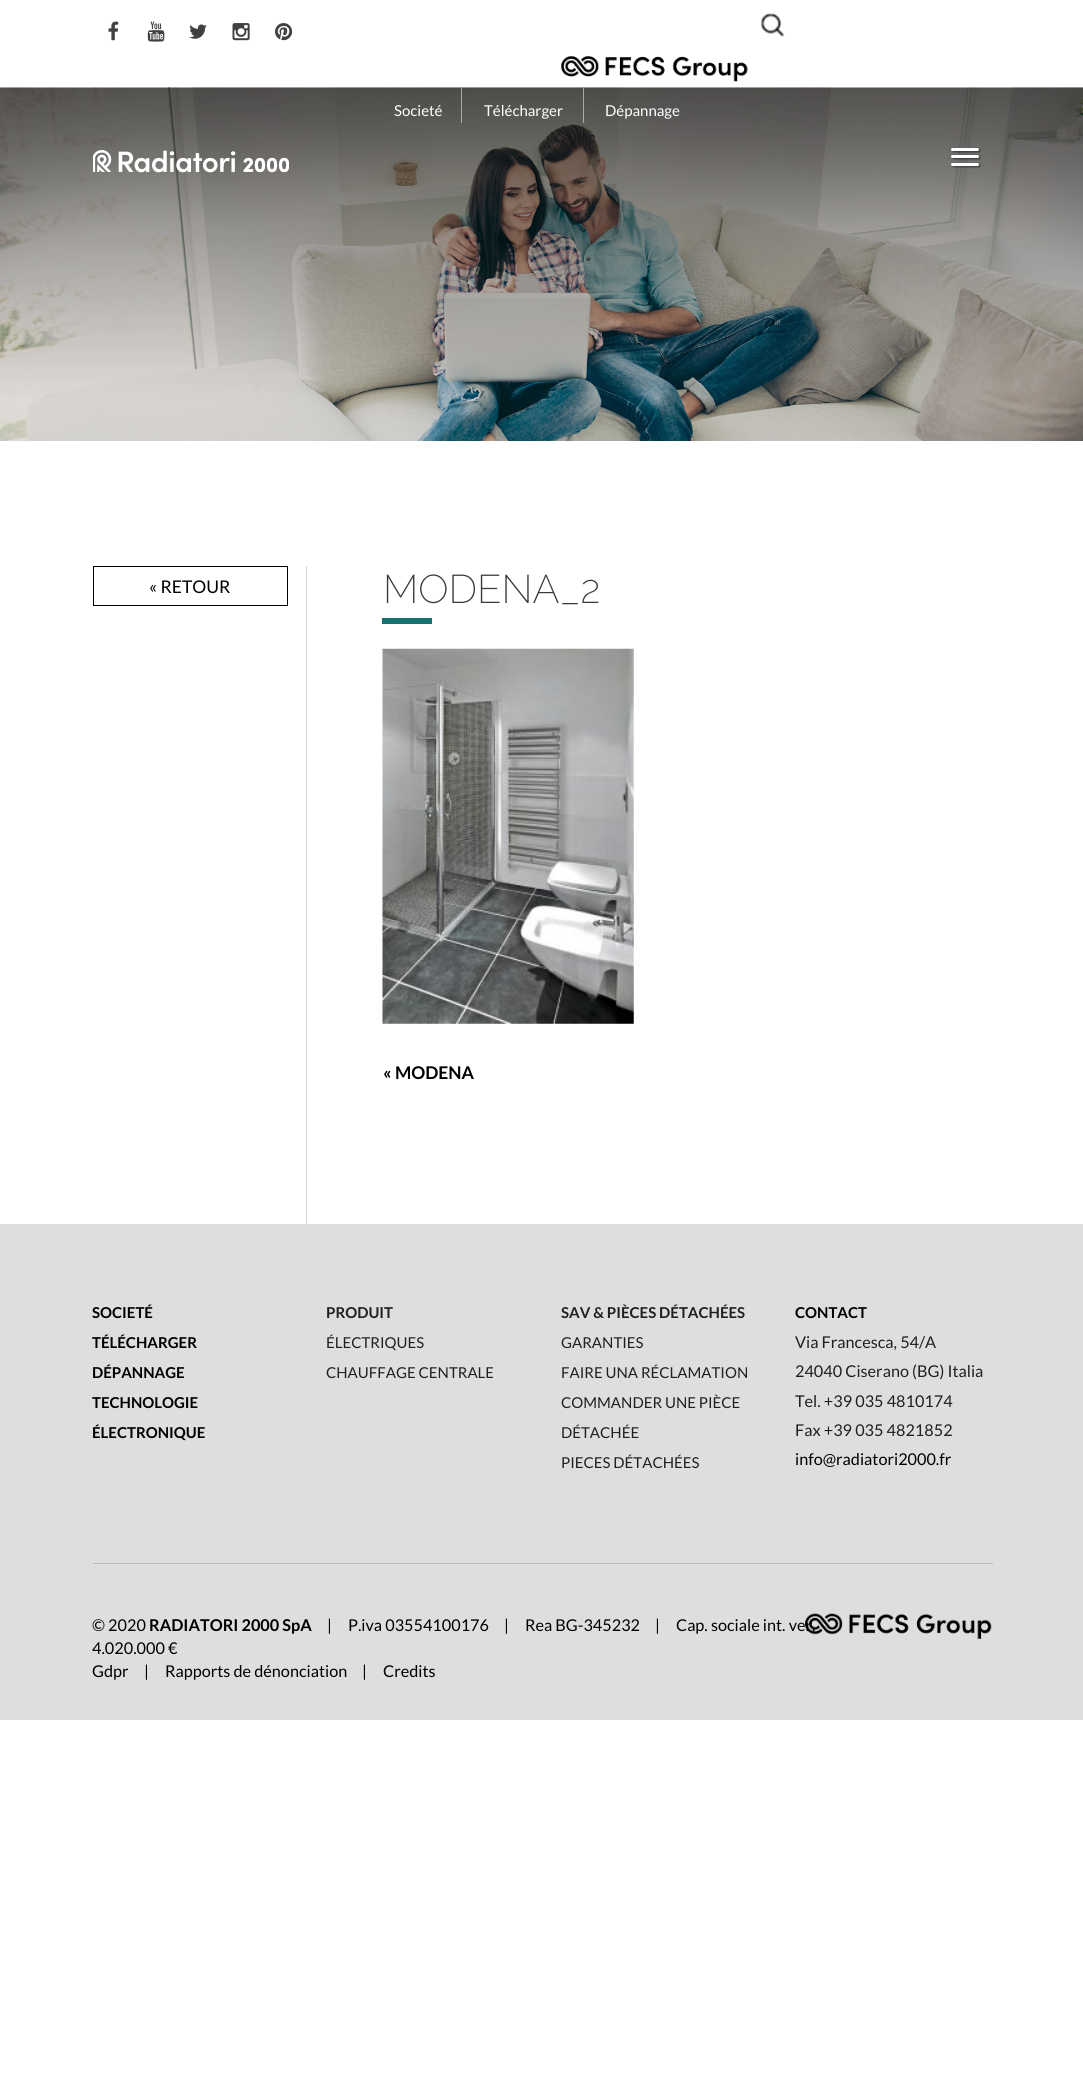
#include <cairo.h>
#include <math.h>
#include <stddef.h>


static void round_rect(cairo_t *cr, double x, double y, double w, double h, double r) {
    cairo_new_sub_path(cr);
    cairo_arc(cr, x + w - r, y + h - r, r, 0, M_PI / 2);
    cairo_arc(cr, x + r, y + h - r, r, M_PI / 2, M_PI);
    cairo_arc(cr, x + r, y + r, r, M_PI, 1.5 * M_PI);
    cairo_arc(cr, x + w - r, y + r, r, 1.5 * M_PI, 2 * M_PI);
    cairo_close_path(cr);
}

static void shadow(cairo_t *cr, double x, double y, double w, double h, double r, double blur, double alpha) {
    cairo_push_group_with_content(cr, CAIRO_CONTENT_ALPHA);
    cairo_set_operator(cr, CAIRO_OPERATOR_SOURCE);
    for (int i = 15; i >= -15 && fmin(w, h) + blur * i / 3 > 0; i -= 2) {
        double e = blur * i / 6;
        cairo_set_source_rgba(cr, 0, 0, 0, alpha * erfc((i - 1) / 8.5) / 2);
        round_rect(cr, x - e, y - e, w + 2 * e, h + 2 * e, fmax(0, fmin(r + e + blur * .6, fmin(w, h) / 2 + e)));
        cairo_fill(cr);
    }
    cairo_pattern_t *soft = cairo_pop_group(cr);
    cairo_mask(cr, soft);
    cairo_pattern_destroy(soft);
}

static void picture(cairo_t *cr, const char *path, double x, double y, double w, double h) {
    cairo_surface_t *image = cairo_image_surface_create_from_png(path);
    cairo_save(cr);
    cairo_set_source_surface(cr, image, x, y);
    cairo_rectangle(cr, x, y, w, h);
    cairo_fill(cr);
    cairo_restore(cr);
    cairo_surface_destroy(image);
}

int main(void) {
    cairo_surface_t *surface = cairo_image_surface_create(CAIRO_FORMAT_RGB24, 1083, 2087);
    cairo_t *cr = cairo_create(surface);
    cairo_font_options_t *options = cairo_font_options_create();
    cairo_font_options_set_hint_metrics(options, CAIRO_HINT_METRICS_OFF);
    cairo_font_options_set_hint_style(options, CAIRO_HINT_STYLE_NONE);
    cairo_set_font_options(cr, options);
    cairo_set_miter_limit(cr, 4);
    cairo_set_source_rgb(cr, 1, 1, 1);
    cairo_paint(cr);
    picture(cr, "img1.png", 108, 21, 11, 20);
    picture(cr, "img2.png", 147, 21, 18, 21);
    picture(cr, "img3.png", 189, 24, 18, 15);
    picture(cr, "img4.png", 232, 23, 18, 18);
    picture(cr, "img5.png", 275, 23, 18, 18);
    picture(cr, "img6.png", 760, 13, 25, 24);
    picture(cr, "img7.png", 561, 56, 187, 26);
    picture(cr, "img8.png", 0, 87, 1083, 354);
    cairo_set_source_rgba(cr, 1, 1, 1, 0.5);
    cairo_rectangle(cr, 461, 88, 1, 35);
    cairo_fill(cr);
    cairo_select_font_face(cr, "Lato", CAIRO_FONT_SLANT_NORMAL, CAIRO_FONT_WEIGHT_NORMAL);
    cairo_set_font_size(cr, 15);
    cairo_set_source_rgb(cr, 1, 1, 1);
    cairo_move_to(cr, 394, 116);
    cairo_show_text(cr, "Societé");
    cairo_set_source_rgba(cr, 1, 1, 1, 0.5);
    cairo_rectangle(cr, 583, 88, 1, 35);
    cairo_fill(cr);
    cairo_set_source_rgb(cr, 1, 1, 1);
    cairo_move_to(cr, 484, 116);
    cairo_show_text(cr, "Télécharger");
    cairo_move_to(cr, 605, 116);
    cairo_show_text(cr, "Dépannage");
    cairo_set_source_rgb(cr, 0, 0, 0);
    shadow(cr, 953, 149, 27, 3, 1.5, 1, 0.5);
    cairo_set_source_rgb(cr, 1, 1, 1);
    round_rect(cr, 951, 148, 28, 3, 1.5);
    cairo_fill(cr);
    cairo_set_source_rgb(cr, 0, 0, 0);
    shadow(cr, 953, 156, 27, 3, 1.5, 1, 0.5);
    cairo_set_source_rgb(cr, 1, 1, 1);
    round_rect(cr, 951, 155, 28, 3, 1.5);
    cairo_fill(cr);
    cairo_set_source_rgb(cr, 0, 0, 0);
    shadow(cr, 953, 164, 27, 3, 1.5, 1, 0.5);
    cairo_set_source_rgb(cr, 1, 1, 1);
    round_rect(cr, 951, 163, 28, 3, 1.5);
    cairo_fill(cr);
    picture(cr, "img9.png", 93, 150, 196, 23);
    cairo_set_source_rgb(cr, 0.851, 0.851, 0.851);
    cairo_rectangle(cr, 306, 566, 1, 658);
    cairo_fill(cr);
    cairo_rectangle(cr, 93.5, 566.5, 194, 39);
    cairo_set_source_rgb(cr, 0, 0, 0);
    cairo_set_line_width(cr, 1);
    cairo_stroke(cr);
    cairo_set_font_size(cr, 17.5);
    cairo_move_to(cr, 149, 593);
    cairo_show_text(cr, "« RETOUR");
    cairo_set_source_rgb(cr, 0.082, 0.443, 0.431);
    cairo_rectangle(cr, 382, 618, 50, 6);
    cairo_fill(cr);
    cairo_select_font_face(cr, "Raleway ExtraLight", CAIRO_FONT_SLANT_NORMAL, CAIRO_FONT_WEIGHT_NORMAL);
    cairo_set_font_size(cr, 40);
    cairo_set_source_rgb(cr, 0.231, 0.231, 0.231);
    cairo_move_to(cr, 383, 603);
    cairo_show_text(cr, "MODENA_2");
    picture(cr, "img10.png", 382, 648, 252, 376);
    cairo_select_font_face(cr, "Lato", CAIRO_FONT_SLANT_NORMAL, CAIRO_FONT_WEIGHT_BOLD);
    cairo_set_font_size(cr, 17.5);
    cairo_set_source_rgb(cr, 0, 0, 0);
    cairo_move_to(cr, 383, 1079);
    cairo_show_text(cr, "« MODENA");
    cairo_set_source_rgb(cr, 0.871, 0.871, 0.871);
    cairo_rectangle(cr, 0, 1224, 1083, 496);
    cairo_fill(cr);
    cairo_set_font_size(cr, 15);
    cairo_set_source_rgb(cr, 0, 0, 0);
    cairo_move_to(cr, 92, 1318);
    cairo_show_text(cr, "SOCIETÉ");
    cairo_move_to(cr, 92, 1348);
    cairo_show_text(cr, "TÉLÉCHARGER");
    cairo_move_to(cr, 92, 1378);
    cairo_show_text(cr, "DÉPANNAGE");
    cairo_move_to(cr, 92, 1408);
    cairo_show_text(cr, "TECHNOLOGIE");
    cairo_move_to(cr, 92, 1438);
    cairo_show_text(cr, "ÉLECTRONIQUE");
    cairo_set_source_rgb(cr, 0.125, 0.125, 0.125);
    cairo_move_to(cr, 326, 1318);
    cairo_show_text(cr, "PRODUIT");
    cairo_select_font_face(cr, "Lato", CAIRO_FONT_SLANT_NORMAL, CAIRO_FONT_WEIGHT_NORMAL);
    cairo_move_to(cr, 326, 1348);
    cairo_show_text(cr, "ÉLECTRIQUES");
    cairo_move_to(cr, 326, 1378);
    cairo_show_text(cr, "CHAUFFAGE CENTRALE");
    cairo_select_font_face(cr, "Lato", CAIRO_FONT_SLANT_NORMAL, CAIRO_FONT_WEIGHT_BOLD);
    cairo_move_to(cr, 561, 1318);
    cairo_show_text(cr, "SAV & PIÈCES DÉTACHÉES");
    cairo_select_font_face(cr, "Lato", CAIRO_FONT_SLANT_NORMAL, CAIRO_FONT_WEIGHT_NORMAL);
    cairo_move_to(cr, 561, 1348);
    cairo_show_text(cr, "GARANTIES");
    cairo_move_to(cr, 561, 1378);
    cairo_show_text(cr, "FAIRE UNA RÉCLAMATION");
    cairo_move_to(cr, 561, 1408);
    cairo_show_text(cr, "COMMANDER UNE PIÈCE");
    cairo_move_to(cr, 561, 1438);
    cairo_show_text(cr, "DÉTACHÉE");
    cairo_move_to(cr, 561, 1468);
    cairo_show_text(cr, "PIECES DÉTACHÉES");
    cairo_select_font_face(cr, "Lato", CAIRO_FONT_SLANT_NORMAL, CAIRO_FONT_WEIGHT_BOLD);
    cairo_set_source_rgb(cr, 0, 0, 0);
    cairo_move_to(cr, 795, 1318);
    cairo_show_text(cr, "CONTACT");
    cairo_select_font_face(cr, "Lato", CAIRO_FONT_SLANT_NORMAL, CAIRO_FONT_WEIGHT_NORMAL);
    cairo_set_font_size(cr, 16.25);
    cairo_set_source_rgb(cr, 0.125, 0.125, 0.125);
    cairo_move_to(cr, 795, 1348);
    cairo_show_text(cr, "Via Francesca, 54/A");
    cairo_move_to(cr, 795, 1377);
    cairo_show_text(cr, "24040 Ciserano (BG) Italia");
    cairo_move_to(cr, 795, 1407);
    cairo_show_text(cr, "Tel. +39 035 4810174");
    cairo_move_to(cr, 795, 1436);
    cairo_show_text(cr, "Fax +39 035 4821852");
    cairo_set_source_rgb(cr, 0, 0, 0);
    cairo_move_to(cr, 795, 1465);
    cairo_show_text(cr, "info@radiatori2000.fr");
    cairo_set_source_rgb(cr, 0.733, 0.733, 0.733);
    cairo_rectangle(cr, 93, 1563, 900, 1);
    cairo_fill(cr);
    cairo_set_source_rgb(cr, 0, 0, 0);
    cairo_move_to(cr, 92, 1631);
    cairo_show_text(cr, "© 2020");
    cairo_select_font_face(cr, "Lato", CAIRO_FONT_SLANT_NORMAL, CAIRO_FONT_WEIGHT_BOLD);
    cairo_move_to(cr, 149, 1631);
    cairo_show_text(cr, "RADIATORI 2000 SpA");
    cairo_select_font_face(cr, "Lato", CAIRO_FONT_SLANT_NORMAL, CAIRO_FONT_WEIGHT_NORMAL);
    cairo_move_to(cr, 327, 1631);
    cairo_show_text(cr, "|");
    cairo_move_to(cr, 348, 1631);
    cairo_show_text(cr, "P.iva 03554100176");
    cairo_move_to(cr, 504, 1631);
    cairo_show_text(cr, "|");
    cairo_move_to(cr, 525, 1631);
    cairo_show_text(cr, "Rea BG-345232");
    cairo_move_to(cr, 655, 1631);
    cairo_show_text(cr, "|");
    cairo_move_to(cr, 676, 1631);
    cairo_show_text(cr, "Cap. sociale int. ver.");
    cairo_move_to(cr, 92, 1654);
    cairo_show_text(cr, "4.020.000 €");
    cairo_move_to(cr, 92, 1677);
    cairo_show_text(cr, "Gdpr");
    cairo_move_to(cr, 144, 1677);
    cairo_show_text(cr, "|");
    cairo_move_to(cr, 165, 1677);
    cairo_show_text(cr, "Rapports de dénonciation");
    cairo_move_to(cr, 362, 1677);
    cairo_show_text(cr, "|");
    cairo_move_to(cr, 383, 1677);
    cairo_show_text(cr, "Credits");
    picture(cr, "img11.png", 805, 1613, 187, 26);
    cairo_surface_write_to_png(surface, "page.png");
    cairo_font_options_destroy(options);
    cairo_destroy(cr);
    cairo_surface_destroy(surface);
    return 0;
}
